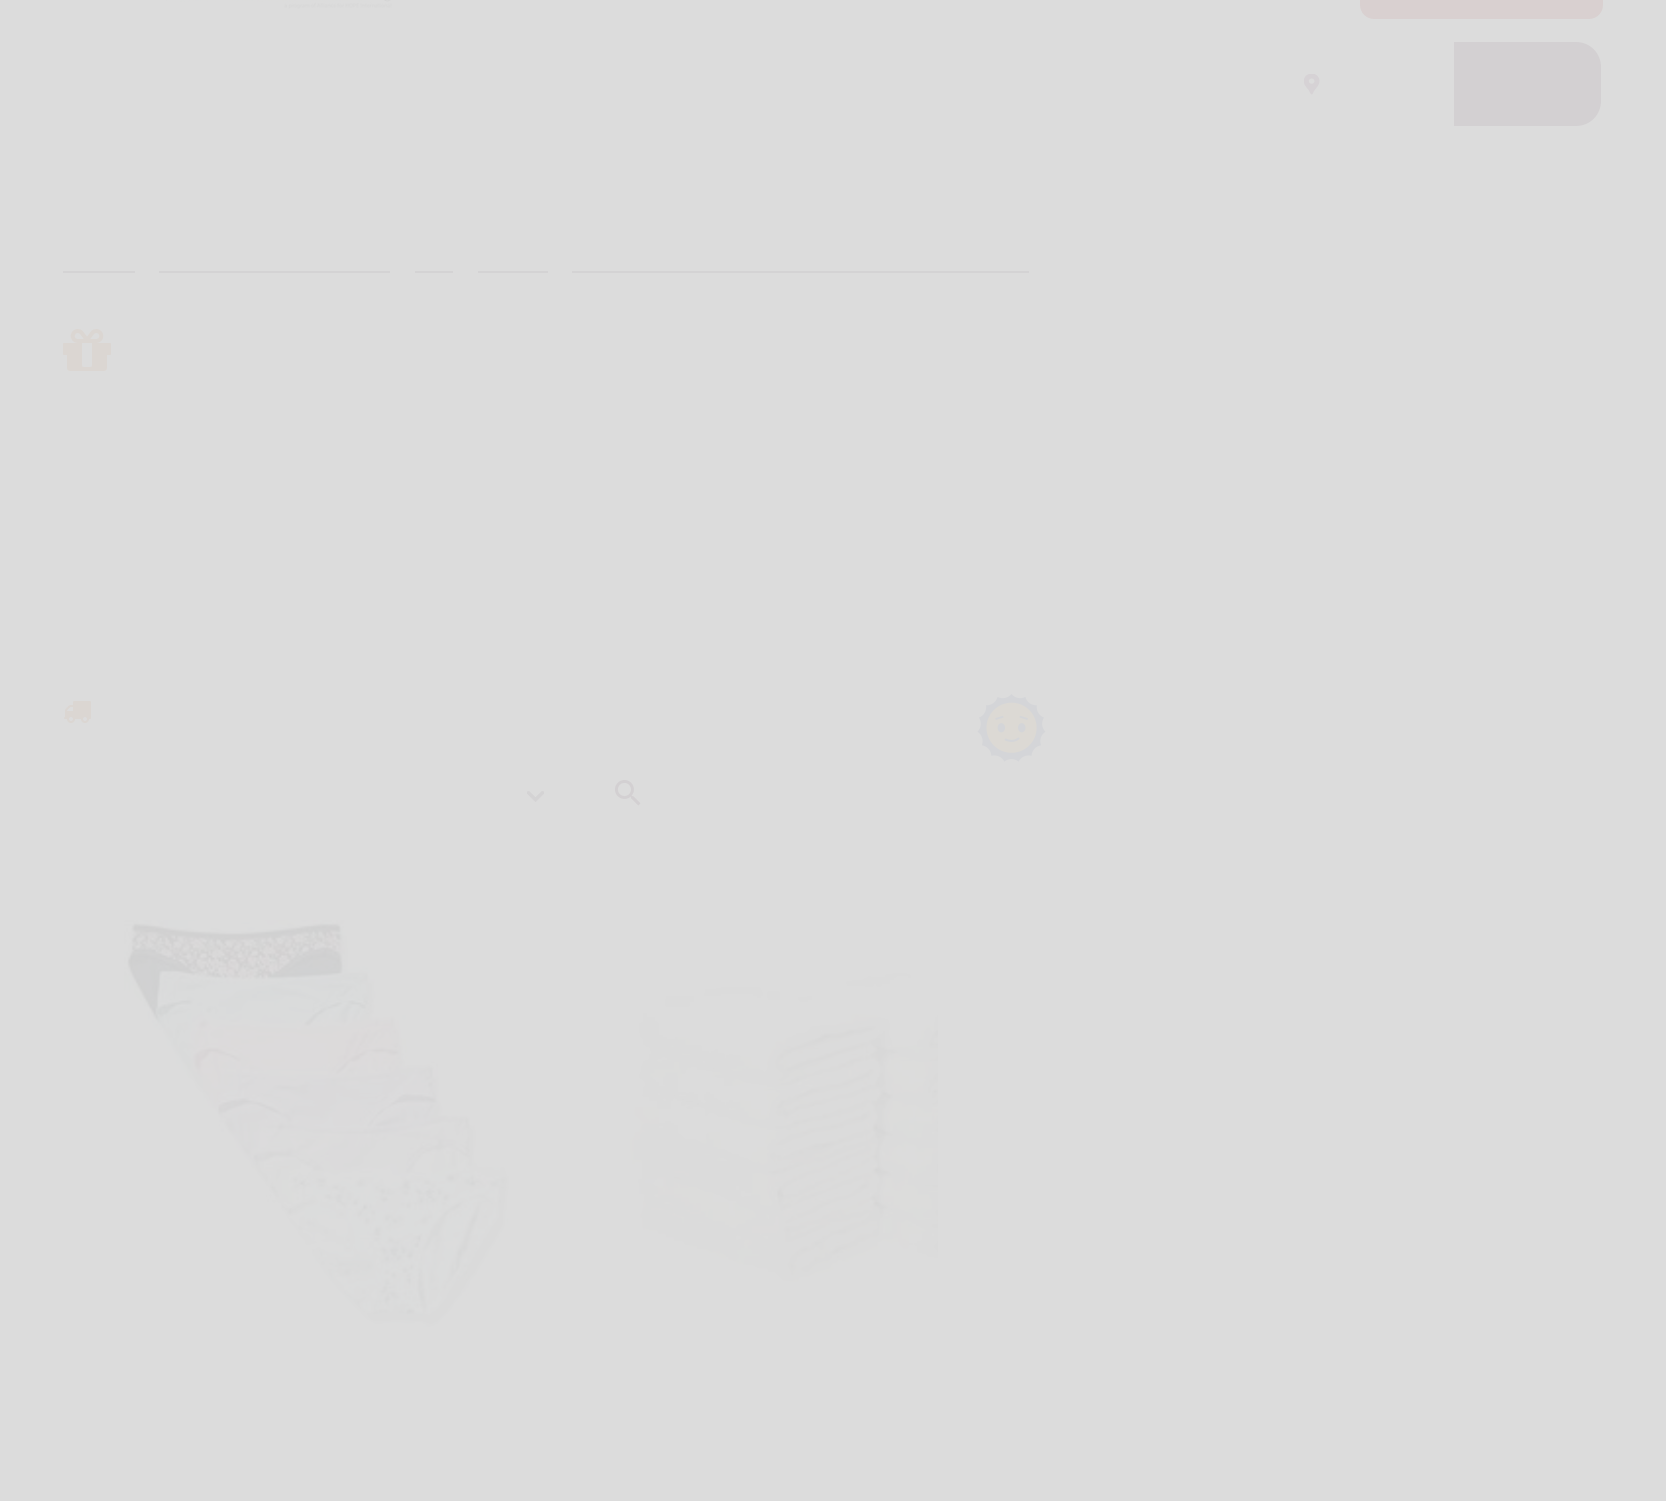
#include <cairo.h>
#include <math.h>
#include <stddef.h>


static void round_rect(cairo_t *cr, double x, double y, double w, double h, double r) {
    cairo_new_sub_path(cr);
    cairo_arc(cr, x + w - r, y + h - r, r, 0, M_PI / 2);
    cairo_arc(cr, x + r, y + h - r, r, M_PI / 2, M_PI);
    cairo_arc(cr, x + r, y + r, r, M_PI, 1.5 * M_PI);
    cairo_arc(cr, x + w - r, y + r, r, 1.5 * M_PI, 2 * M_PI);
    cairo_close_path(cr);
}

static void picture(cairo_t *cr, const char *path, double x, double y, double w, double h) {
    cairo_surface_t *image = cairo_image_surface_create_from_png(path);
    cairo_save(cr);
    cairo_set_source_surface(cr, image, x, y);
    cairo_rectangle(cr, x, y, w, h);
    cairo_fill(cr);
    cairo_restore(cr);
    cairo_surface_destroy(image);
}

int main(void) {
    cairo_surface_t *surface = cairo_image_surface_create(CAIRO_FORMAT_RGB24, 1666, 1501);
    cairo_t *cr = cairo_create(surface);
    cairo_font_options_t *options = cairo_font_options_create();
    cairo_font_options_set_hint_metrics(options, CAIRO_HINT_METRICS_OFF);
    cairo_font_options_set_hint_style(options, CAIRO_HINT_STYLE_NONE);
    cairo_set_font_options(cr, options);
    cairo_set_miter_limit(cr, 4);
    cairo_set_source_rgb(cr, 0.863, 0.863, 0.863);
    cairo_paint(cr);
    picture(cr, "img1.png", 158, 0, 234, 10);
    cairo_set_source_rgb(cr, 0.851, 0.816, 0.816);
    round_rect(cr, 1360, -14, 243, 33, 14);
    cairo_fill(cr);
    picture(cr, "img2.png", 1304, 74, 16, 21);
    cairo_set_source_rgb(cr, 0.827, 0.816, 0.824);
    cairo_new_path(cr);
    cairo_move_to(cr, 1454, 42);
    cairo_line_to(cr, 1576, 42);
    cairo_curve_to(cr, 1590, 42, 1601, 53, 1601, 67);
    cairo_line_to(cr, 1601, 101);
    cairo_curve_to(cr, 1601, 115, 1590, 126, 1576, 126);
    cairo_line_to(cr, 1454, 126);
    cairo_close_path(cr);
    cairo_fill(cr);
    cairo_set_source_rgb(cr, 0.831, 0.827, 0.831);
    cairo_rectangle(cr, 63, 271, 72, 2);
    cairo_fill(cr);
    cairo_rectangle(cr, 159, 271, 231, 2);
    cairo_fill(cr);
    cairo_rectangle(cr, 415, 271, 38, 2);
    cairo_fill(cr);
    cairo_rectangle(cr, 478, 271, 70, 2);
    cairo_fill(cr);
    cairo_rectangle(cr, 572, 271, 457, 2);
    cairo_fill(cr);
    picture(cr, "img3.png", 63, 329, 48, 42);
    picture(cr, "img4.png", 64, 701, 27, 22);
    picture(cr, "img5.png", 527, 791, 17, 12);
    picture(cr, "img6.png", 614, 780, 27, 26);
    picture(cr, "img7.png", 124, 920, 390, 407);
    picture(cr, "img8.png", 627, 973, 311, 330);
    picture(cr, "img9.png", 977, 694, 69, 68);
    cairo_surface_write_to_png(surface, "page.png");
    cairo_font_options_destroy(options);
    cairo_destroy(cr);
    cairo_surface_destroy(surface);
    return 0;
}
